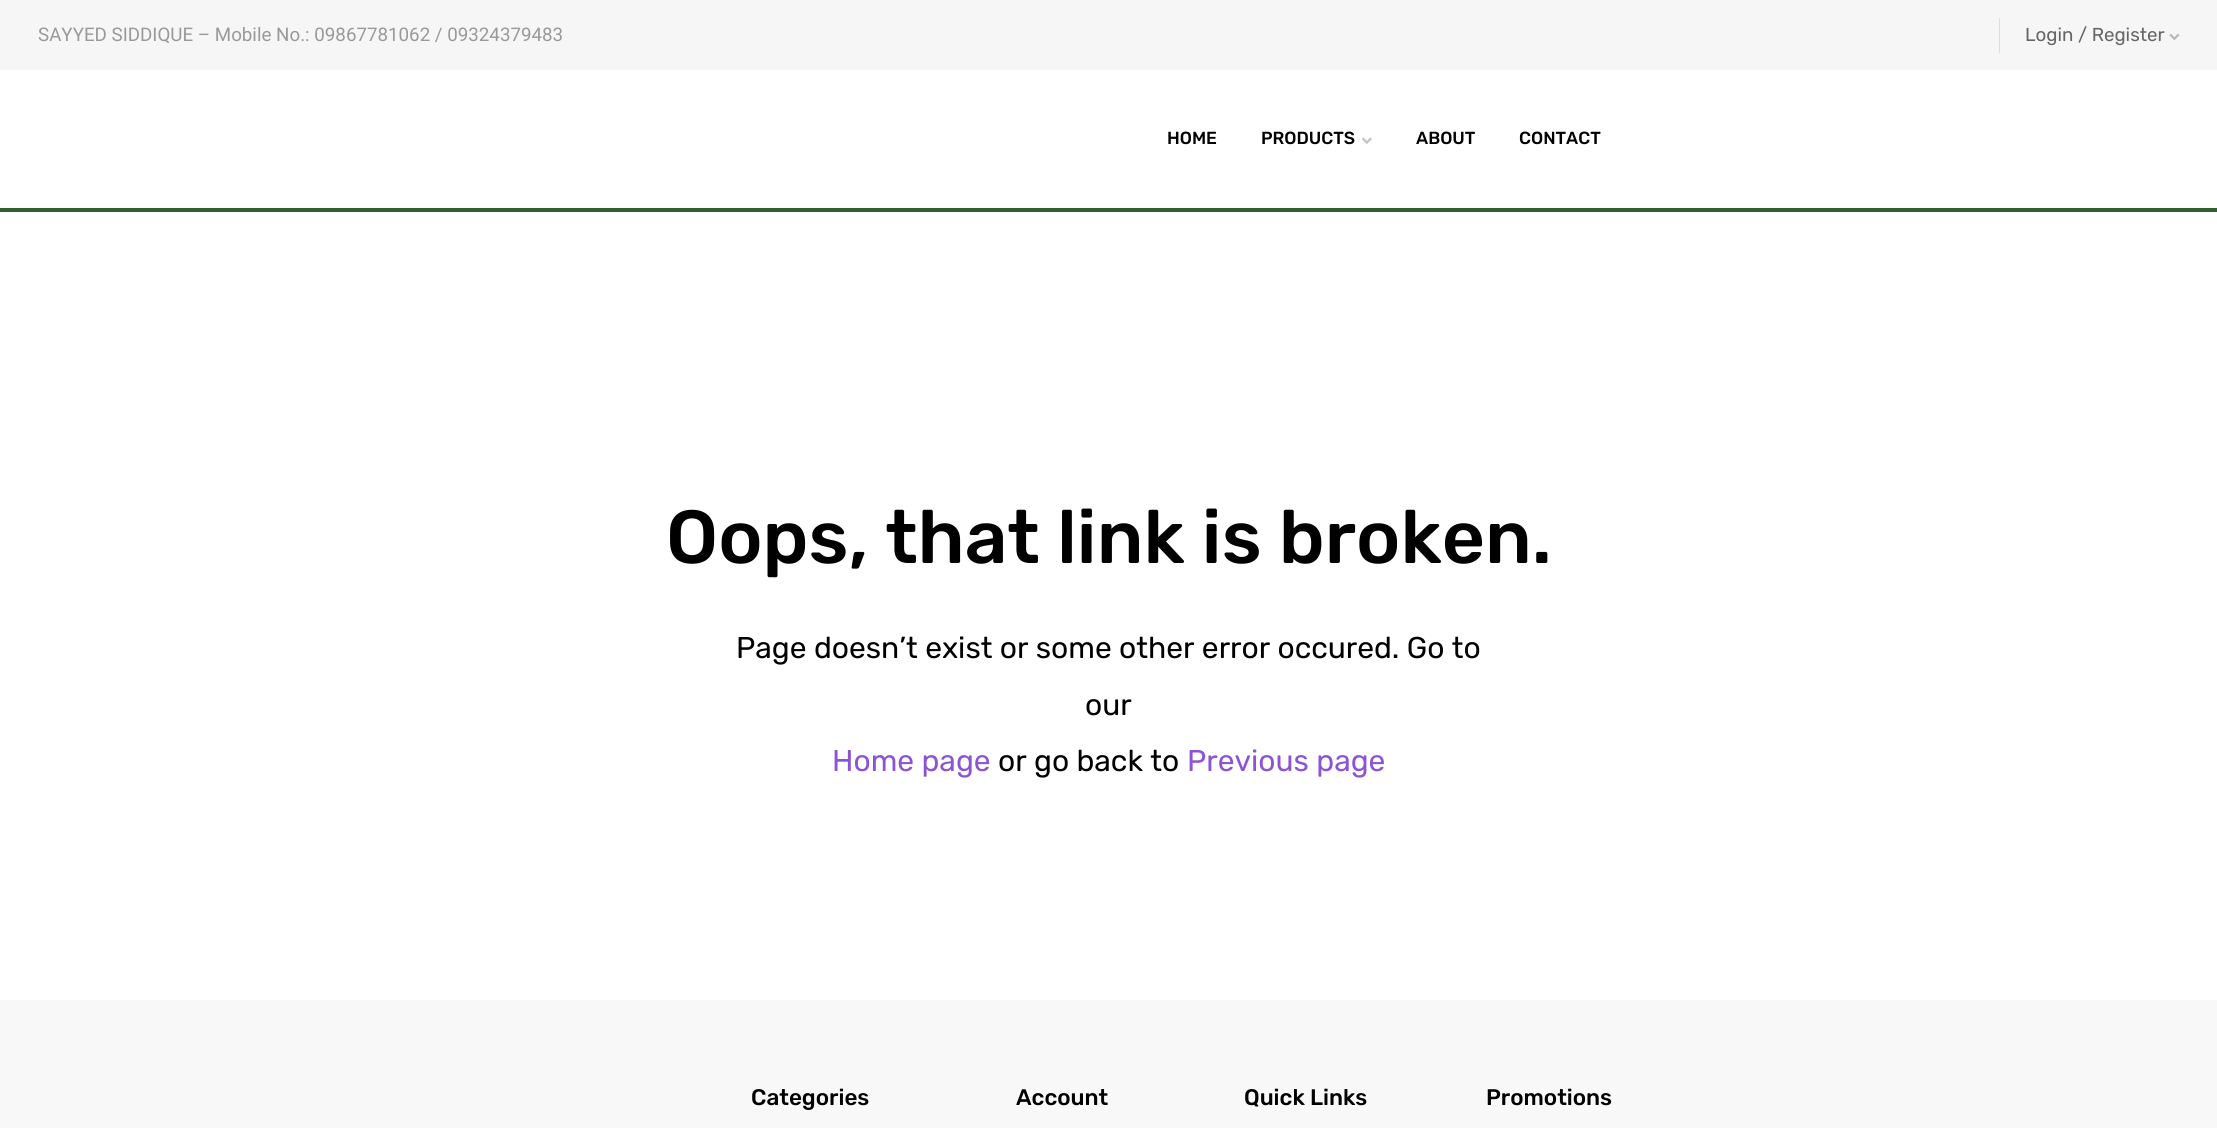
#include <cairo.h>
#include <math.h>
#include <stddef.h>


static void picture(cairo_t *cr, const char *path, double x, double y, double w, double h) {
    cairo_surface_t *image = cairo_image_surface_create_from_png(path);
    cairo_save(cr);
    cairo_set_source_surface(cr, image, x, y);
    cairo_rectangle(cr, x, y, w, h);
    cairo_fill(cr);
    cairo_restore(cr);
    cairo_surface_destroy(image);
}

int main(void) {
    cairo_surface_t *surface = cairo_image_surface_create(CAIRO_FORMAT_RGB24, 2217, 1128);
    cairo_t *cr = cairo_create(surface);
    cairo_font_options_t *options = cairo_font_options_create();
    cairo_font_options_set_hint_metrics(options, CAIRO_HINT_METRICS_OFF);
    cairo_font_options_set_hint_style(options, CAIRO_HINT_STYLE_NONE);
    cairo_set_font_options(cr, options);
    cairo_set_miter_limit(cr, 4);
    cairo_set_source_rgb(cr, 1, 1, 1);
    cairo_paint(cr);
    cairo_set_source_rgb(cr, 0.961, 0.961, 0.961);
    cairo_rectangle(cr, 0, 0, 2217, 70);
    cairo_fill(cr);
    cairo_select_font_face(cr, "Roboto", CAIRO_FONT_SLANT_NORMAL, CAIRO_FONT_WEIGHT_NORMAL);
    cairo_set_font_size(cr, 18.75);
    cairo_set_source_rgb(cr, 0.6, 0.6, 0.6);
    cairo_move_to(cr, 38, 41);
    cairo_show_text(cr, "SAYYED SIDDIQUE – Mobile No.: 09867781062 / 09324379483");
    cairo_set_source_rgb(cr, 0.863, 0.863, 0.863);
    cairo_rectangle(cr, 1999, 18, 1, 35);
    cairo_fill(cr);
    cairo_select_font_face(cr, "Rubik", CAIRO_FONT_SLANT_NORMAL, CAIRO_FONT_WEIGHT_NORMAL);
    cairo_set_source_rgb(cr, 0.4, 0.4, 0.4);
    cairo_move_to(cr, 2025, 41);
    cairo_show_text(cr, "Login / Register");
    picture(cr, "img1.png", 2169, 33, 11, 8);
    cairo_set_source_rgb(cr, 0.196, 0.365, 0.188);
    cairo_rectangle(cr, 0, 208, 2217, 4);
    cairo_fill(cr);
    cairo_select_font_face(cr, "Rubik Medium", CAIRO_FONT_SLANT_NORMAL, CAIRO_FONT_WEIGHT_NORMAL);
    cairo_set_font_size(cr, 17.5);
    cairo_set_source_rgb(cr, 0, 0, 0);
    cairo_move_to(cr, 1167, 144);
    cairo_show_text(cr, "HOME");
    cairo_move_to(cr, 1261, 144);
    cairo_show_text(cr, "PRODUCTS");
    picture(cr, "img2.png", 1362, 137, 10, 7);
    cairo_move_to(cr, 1416, 144);
    cairo_show_text(cr, "ABOUT");
    cairo_move_to(cr, 1519, 144);
    cairo_show_text(cr, "CONTACT");
    cairo_set_font_size(cr, 75);
    cairo_move_to(cr, 666, 563);
    cairo_show_text(cr, "Oops, that link is broken.");
    cairo_select_font_face(cr, "Rubik", CAIRO_FONT_SLANT_NORMAL, CAIRO_FONT_WEIGHT_NORMAL);
    cairo_set_font_size(cr, 30);
    cairo_move_to(cr, 736, 658);
    cairo_show_text(cr, "Page doesn’t exist or some other error occured. Go to");
    cairo_move_to(cr, 1085, 715);
    cairo_show_text(cr, "our");
    cairo_set_source_rgb(cr, 0.549, 0.325, 0.824);
    cairo_move_to(cr, 832, 771);
    cairo_show_text(cr, "Home page");
    cairo_set_source_rgb(cr, 0, 0, 0);
    cairo_move_to(cr, 998, 771);
    cairo_show_text(cr, "or go back to");
    cairo_set_source_rgb(cr, 0.549, 0.325, 0.824);
    cairo_move_to(cr, 1187, 771);
    cairo_show_text(cr, "Previous page");
    cairo_set_source_rgb(cr, 0.965, 0.969, 0.965);
    cairo_rectangle(cr, 0, 1000, 2217, 128);
    cairo_fill(cr);
    cairo_select_font_face(cr, "Rubik Medium", CAIRO_FONT_SLANT_NORMAL, CAIRO_FONT_WEIGHT_NORMAL);
    cairo_set_font_size(cr, 22.5);
    cairo_set_source_rgb(cr, 0, 0, 0);
    cairo_move_to(cr, 751, 1105);
    cairo_show_text(cr, "Categories");
    cairo_move_to(cr, 1016, 1105);
    cairo_show_text(cr, "Account");
    cairo_move_to(cr, 1244, 1105);
    cairo_show_text(cr, "Quick Links");
    cairo_move_to(cr, 1486, 1105);
    cairo_show_text(cr, "Promotions");
    cairo_surface_write_to_png(surface, "page.png");
    cairo_font_options_destroy(options);
    cairo_destroy(cr);
    cairo_surface_destroy(surface);
    return 0;
}
